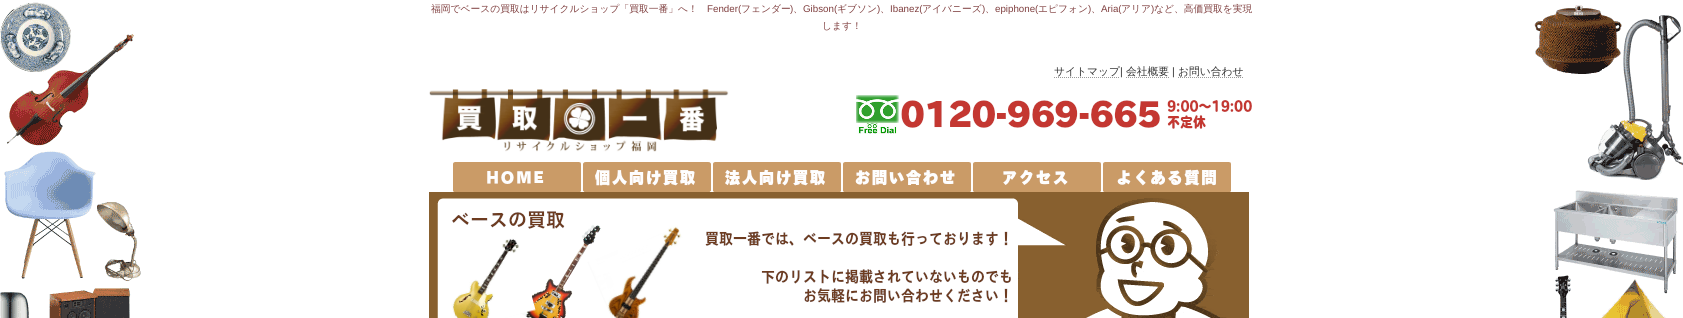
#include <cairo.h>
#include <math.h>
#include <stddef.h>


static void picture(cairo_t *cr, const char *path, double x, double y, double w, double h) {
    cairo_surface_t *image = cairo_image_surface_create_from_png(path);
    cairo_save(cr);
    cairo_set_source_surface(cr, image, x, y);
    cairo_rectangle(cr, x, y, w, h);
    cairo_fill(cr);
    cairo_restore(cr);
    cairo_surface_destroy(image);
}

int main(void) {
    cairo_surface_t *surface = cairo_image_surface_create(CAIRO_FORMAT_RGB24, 1683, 318);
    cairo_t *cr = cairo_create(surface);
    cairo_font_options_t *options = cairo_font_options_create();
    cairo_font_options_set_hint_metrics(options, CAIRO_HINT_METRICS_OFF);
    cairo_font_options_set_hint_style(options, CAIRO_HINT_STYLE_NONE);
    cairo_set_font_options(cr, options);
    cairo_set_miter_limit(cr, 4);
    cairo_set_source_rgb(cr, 1, 1, 1);
    cairo_paint(cr);
    picture(cr, "img1.png", 1534, 5, 149, 313);
    picture(cr, "img2.png", 0, 2, 141, 316);
    cairo_select_font_face(cr, "WenQuanYi Zen Hei Medium", CAIRO_FONT_SLANT_NORMAL, CAIRO_FONT_WEIGHT_NORMAL);
    cairo_set_font_size(cr, 9.75);
    cairo_set_source_rgb(cr, 0.502, 0.251, 0.251);
    cairo_move_to(cr, 431, 12);
    cairo_show_text(cr, "福岡でベースの買取はリサイクルショップ「買取一番」へ！");
    cairo_select_font_face(cr, "Liberation Sans", CAIRO_FONT_SLANT_NORMAL, CAIRO_FONT_WEIGHT_NORMAL);
    cairo_move_to(cr, 707, 12);
    cairo_show_text(cr, "Fender(");
    cairo_select_font_face(cr, "WenQuanYi Zen Hei Medium", CAIRO_FONT_SLANT_NORMAL, CAIRO_FONT_WEIGHT_NORMAL);
    cairo_move_to(cr, 741, 12);
    cairo_show_text(cr, "フェンダー");
    cairo_select_font_face(cr, "Liberation Sans", CAIRO_FONT_SLANT_NORMAL, CAIRO_FONT_WEIGHT_NORMAL);
    cairo_move_to(cr, 790, 12);
    cairo_show_text(cr, ")");
    cairo_select_font_face(cr, "WenQuanYi Zen Hei Medium", CAIRO_FONT_SLANT_NORMAL, CAIRO_FONT_WEIGHT_NORMAL);
    cairo_move_to(cr, 793, 12);
    cairo_show_text(cr, "、");
    cairo_select_font_face(cr, "Liberation Sans", CAIRO_FONT_SLANT_NORMAL, CAIRO_FONT_WEIGHT_NORMAL);
    cairo_move_to(cr, 803, 12);
    cairo_show_text(cr, "Gibson(");
    cairo_select_font_face(cr, "WenQuanYi Zen Hei Medium", CAIRO_FONT_SLANT_NORMAL, CAIRO_FONT_WEIGHT_NORMAL);
    cairo_move_to(cr, 837, 12);
    cairo_show_text(cr, "ギブソン");
    cairo_select_font_face(cr, "Liberation Sans", CAIRO_FONT_SLANT_NORMAL, CAIRO_FONT_WEIGHT_NORMAL);
    cairo_move_to(cr, 877, 12);
    cairo_show_text(cr, ")");
    cairo_select_font_face(cr, "WenQuanYi Zen Hei Medium", CAIRO_FONT_SLANT_NORMAL, CAIRO_FONT_WEIGHT_NORMAL);
    cairo_move_to(cr, 880, 12);
    cairo_show_text(cr, "、");
    cairo_select_font_face(cr, "Liberation Sans", CAIRO_FONT_SLANT_NORMAL, CAIRO_FONT_WEIGHT_NORMAL);
    cairo_move_to(cr, 890, 12);
    cairo_show_text(cr, "Ibanez(");
    cairo_select_font_face(cr, "WenQuanYi Zen Hei Medium", CAIRO_FONT_SLANT_NORMAL, CAIRO_FONT_WEIGHT_NORMAL);
    cairo_move_to(cr, 922, 12);
    cairo_show_text(cr, "アイバニーズ");
    cairo_select_font_face(cr, "Liberation Sans", CAIRO_FONT_SLANT_NORMAL, CAIRO_FONT_WEIGHT_NORMAL);
    cairo_move_to(cr, 982, 12);
    cairo_show_text(cr, ")");
    cairo_select_font_face(cr, "WenQuanYi Zen Hei Medium", CAIRO_FONT_SLANT_NORMAL, CAIRO_FONT_WEIGHT_NORMAL);
    cairo_move_to(cr, 985, 12);
    cairo_show_text(cr, "、");
    cairo_select_font_face(cr, "Liberation Sans", CAIRO_FONT_SLANT_NORMAL, CAIRO_FONT_WEIGHT_NORMAL);
    cairo_move_to(cr, 995, 12);
    cairo_show_text(cr, "epiphone(");
    cairo_select_font_face(cr, "WenQuanYi Zen Hei Medium", CAIRO_FONT_SLANT_NORMAL, CAIRO_FONT_WEIGHT_NORMAL);
    cairo_move_to(cr, 1038, 12);
    cairo_show_text(cr, "エピフォン");
    cairo_select_font_face(cr, "Liberation Sans", CAIRO_FONT_SLANT_NORMAL, CAIRO_FONT_WEIGHT_NORMAL);
    cairo_move_to(cr, 1088, 12);
    cairo_show_text(cr, ")");
    cairo_select_font_face(cr, "WenQuanYi Zen Hei Medium", CAIRO_FONT_SLANT_NORMAL, CAIRO_FONT_WEIGHT_NORMAL);
    cairo_move_to(cr, 1091, 12);
    cairo_show_text(cr, "、");
    cairo_select_font_face(cr, "Liberation Sans", CAIRO_FONT_SLANT_NORMAL, CAIRO_FONT_WEIGHT_NORMAL);
    cairo_move_to(cr, 1101, 12);
    cairo_show_text(cr, "Aria(");
    cairo_select_font_face(cr, "WenQuanYi Zen Hei Medium", CAIRO_FONT_SLANT_NORMAL, CAIRO_FONT_WEIGHT_NORMAL);
    cairo_move_to(cr, 1121, 12);
    cairo_show_text(cr, "アリア");
    cairo_select_font_face(cr, "Liberation Sans", CAIRO_FONT_SLANT_NORMAL, CAIRO_FONT_WEIGHT_NORMAL);
    cairo_move_to(cr, 1151, 12);
    cairo_show_text(cr, ")");
    cairo_select_font_face(cr, "WenQuanYi Zen Hei Medium", CAIRO_FONT_SLANT_NORMAL, CAIRO_FONT_WEIGHT_NORMAL);
    cairo_move_to(cr, 1154, 12);
    cairo_show_text(cr, "など、高価買取を実現");
    cairo_move_to(cr, 822, 29);
    cairo_show_text(cr, "します！");
    cairo_set_font_size(cr, 10.75);
    cairo_set_source_rgb(cr, 0.2, 0.2, 0.2);
    cairo_move_to(cr, 1054, 75);
    cairo_show_text(cr, "サイトマップ");
    cairo_new_path(cr);
    cairo_move_to(cr, 1054, 77.5);
    cairo_line_to(cr, 1120, 77.5);
    cairo_set_source_rgb(cr, 0.6, 0.6, 0.6);
    cairo_set_line_width(cr, 1);
    cairo_set_dash(cr, (double[]){1, 1}, 2, 0);
    cairo_stroke(cr);
    cairo_select_font_face(cr, "Liberation Sans", CAIRO_FONT_SLANT_NORMAL, CAIRO_FONT_WEIGHT_NORMAL);
    cairo_set_source_rgb(cr, 0.2, 0.2, 0.2);
    cairo_move_to(cr, 1120, 75);
    cairo_show_text(cr, "|");
    cairo_select_font_face(cr, "WenQuanYi Zen Hei Medium", CAIRO_FONT_SLANT_NORMAL, CAIRO_FONT_WEIGHT_NORMAL);
    cairo_move_to(cr, 1126, 75);
    cairo_show_text(cr, "会社概要");
    cairo_new_path(cr);
    cairo_move_to(cr, 1126, 77.5);
    cairo_line_to(cr, 1169, 77.5);
    cairo_set_source_rgb(cr, 0.6, 0.6, 0.6);
    cairo_stroke(cr);
    cairo_select_font_face(cr, "Liberation Sans", CAIRO_FONT_SLANT_NORMAL, CAIRO_FONT_WEIGHT_NORMAL);
    cairo_set_source_rgb(cr, 0.2, 0.2, 0.2);
    cairo_move_to(cr, 1172, 75);
    cairo_show_text(cr, "|");
    cairo_select_font_face(cr, "WenQuanYi Zen Hei Medium", CAIRO_FONT_SLANT_NORMAL, CAIRO_FONT_WEIGHT_NORMAL);
    cairo_move_to(cr, 1178, 75);
    cairo_show_text(cr, "お問い合わせ");
    cairo_new_path(cr);
    cairo_move_to(cr, 1178, 77.5);
    cairo_line_to(cr, 1244, 77.5);
    cairo_set_source_rgb(cr, 0.6, 0.6, 0.6);
    cairo_stroke(cr);
    picture(cr, "img3.png", 429, 89, 300, 63);
    picture(cr, "img4.png", 856, 95, 396, 39);
    picture(cr, "img5.png", 453, 162, 128, 30);
    picture(cr, "img6.png", 583, 162, 128, 30);
    picture(cr, "img7.png", 713, 162, 128, 30);
    picture(cr, "img8.png", 843, 162, 128, 30);
    picture(cr, "img9.png", 973, 162, 128, 30);
    picture(cr, "img10.png", 1103, 162, 128, 30);
    picture(cr, "img11.png", 429, 192, 820, 126);
    cairo_surface_write_to_png(surface, "page.png");
    cairo_font_options_destroy(options);
    cairo_destroy(cr);
    cairo_surface_destroy(surface);
    return 0;
}
